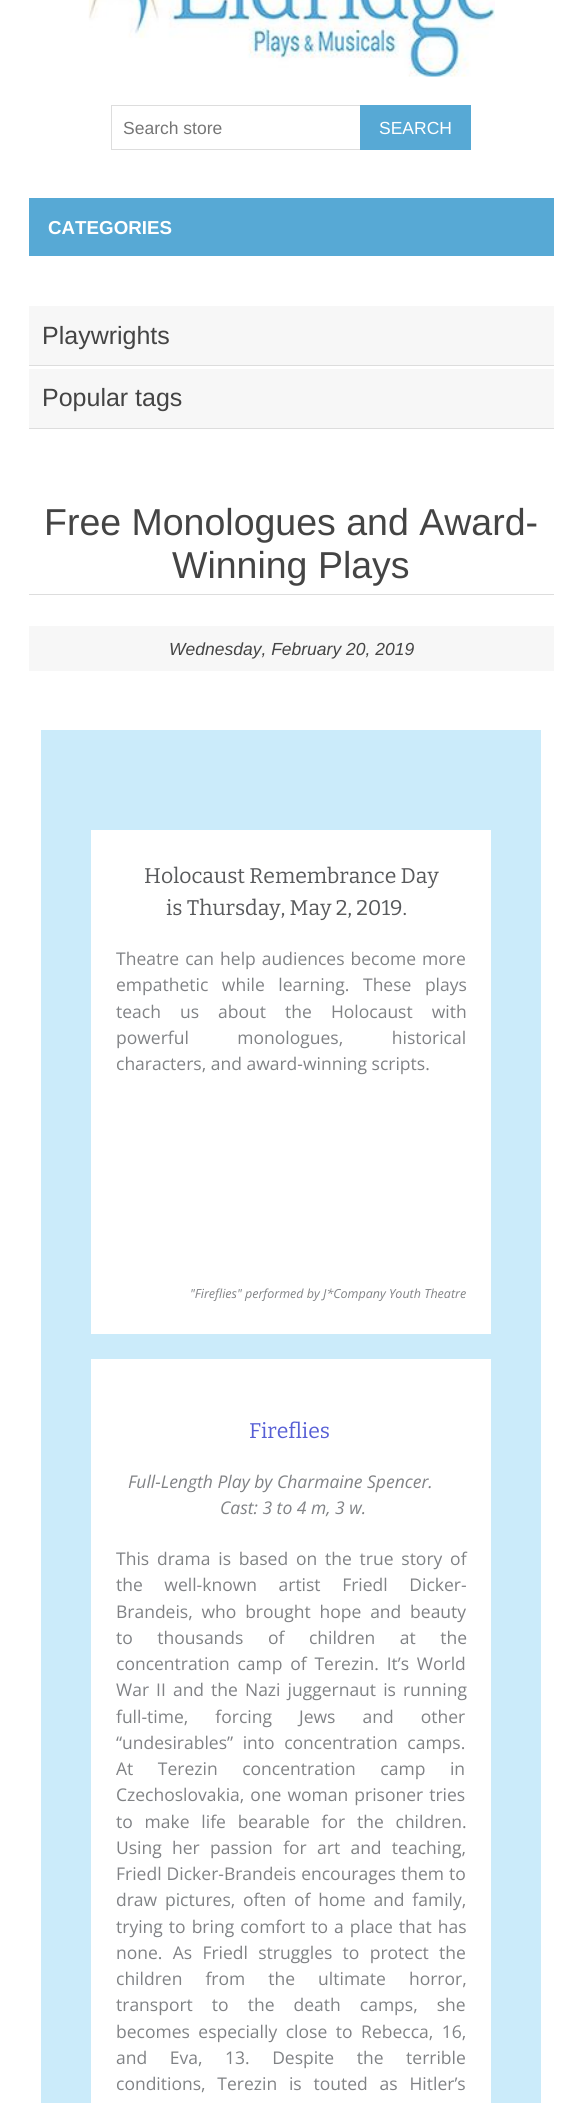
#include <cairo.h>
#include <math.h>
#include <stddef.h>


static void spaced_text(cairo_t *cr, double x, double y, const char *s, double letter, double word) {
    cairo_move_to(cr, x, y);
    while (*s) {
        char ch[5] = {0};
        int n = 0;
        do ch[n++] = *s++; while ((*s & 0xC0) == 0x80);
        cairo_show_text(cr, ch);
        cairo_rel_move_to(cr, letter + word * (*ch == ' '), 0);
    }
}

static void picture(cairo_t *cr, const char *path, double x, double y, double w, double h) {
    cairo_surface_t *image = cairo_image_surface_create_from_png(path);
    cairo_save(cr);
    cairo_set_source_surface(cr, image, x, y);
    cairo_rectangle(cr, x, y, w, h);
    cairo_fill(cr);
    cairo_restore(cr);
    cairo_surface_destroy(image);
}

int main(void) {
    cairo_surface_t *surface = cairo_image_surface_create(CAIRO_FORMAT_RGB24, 582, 2103);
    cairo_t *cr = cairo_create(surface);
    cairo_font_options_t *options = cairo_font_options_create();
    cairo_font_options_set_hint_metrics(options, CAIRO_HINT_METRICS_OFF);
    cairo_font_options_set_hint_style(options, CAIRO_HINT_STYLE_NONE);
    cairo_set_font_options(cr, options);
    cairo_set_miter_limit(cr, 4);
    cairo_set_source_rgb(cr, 1, 1, 1);
    cairo_paint(cr);
    picture(cr, "img1.png", 88, 0, 407, 77);
    cairo_rectangle(cr, 111.5, 105.5, 249, 44);
    cairo_set_source_rgb(cr, 0.867, 0.867, 0.867);
    cairo_set_line_width(cr, 1);
    cairo_stroke(cr);
    cairo_select_font_face(cr, "Liberation Sans", CAIRO_FONT_SLANT_NORMAL, CAIRO_FONT_WEIGHT_NORMAL);
    cairo_set_font_size(cr, 17.5);
    cairo_set_source_rgb(cr, 0.459, 0.459, 0.459);
    cairo_move_to(cr, 123, 134);
    cairo_show_text(cr, "Search store");
    cairo_set_source_rgb(cr, 0.341, 0.663, 0.835);
    cairo_rectangle(cr, 360, 105, 111, 45);
    cairo_fill(cr);
    cairo_set_source_rgb(cr, 1, 1, 1);
    cairo_move_to(cr, 379, 134);
    cairo_show_text(cr, "SEARCH");
    cairo_set_source_rgb(cr, 0.341, 0.663, 0.835);
    cairo_rectangle(cr, 29, 198, 525, 58);
    cairo_fill(cr);
    cairo_select_font_face(cr, "Liberation Sans", CAIRO_FONT_SLANT_NORMAL, CAIRO_FONT_WEIGHT_BOLD);
    cairo_set_font_size(cr, 18.75);
    cairo_set_source_rgb(cr, 1, 1, 1);
    cairo_move_to(cr, 48, 234);
    cairo_show_text(cr, "CATEGORIES");
    cairo_set_source_rgb(cr, 0.965, 0.965, 0.965);
    cairo_rectangle(cr, 29, 306, 525, 59);
    cairo_fill(cr);
    cairo_set_source_rgb(cr, 0.867, 0.867, 0.867);
    cairo_rectangle(cr, 29, 365, 525, 1);
    cairo_fill(cr);
    cairo_select_font_face(cr, "Liberation Sans", CAIRO_FONT_SLANT_NORMAL, CAIRO_FONT_WEIGHT_NORMAL);
    cairo_set_font_size(cr, 25);
    cairo_set_source_rgb(cr, 0.267, 0.267, 0.267);
    cairo_move_to(cr, 42, 344);
    cairo_show_text(cr, "Playwrights");
    cairo_set_source_rgb(cr, 0.965, 0.965, 0.965);
    cairo_rectangle(cr, 29, 369, 525, 59);
    cairo_fill(cr);
    cairo_set_source_rgb(cr, 0.867, 0.867, 0.867);
    cairo_rectangle(cr, 29, 428, 525, 1);
    cairo_fill(cr);
    cairo_set_source_rgb(cr, 0.267, 0.267, 0.267);
    cairo_move_to(cr, 42, 406);
    cairo_show_text(cr, "Popular tags");
    cairo_set_source_rgb(cr, 0.867, 0.867, 0.867);
    cairo_rectangle(cr, 29, 594, 525, 1);
    cairo_fill(cr);
    cairo_set_font_size(cr, 37.5);
    cairo_set_source_rgb(cr, 0.267, 0.267, 0.267);
    cairo_move_to(cr, 44, 535);
    cairo_show_text(cr, "Free Monologues and Award-");
    cairo_move_to(cr, 172, 578);
    cairo_show_text(cr, "Winning Plays");
    cairo_set_source_rgb(cr, 0.965, 0.965, 0.965);
    cairo_rectangle(cr, 29, 626, 525, 45);
    cairo_fill(cr);
    cairo_select_font_face(cr, "Liberation Sans", CAIRO_FONT_SLANT_ITALIC, CAIRO_FONT_WEIGHT_NORMAL);
    cairo_set_font_size(cr, 17.5);
    cairo_set_source_rgb(cr, 0.267, 0.267, 0.267);
    cairo_move_to(cr, 169, 655);
    cairo_show_text(cr, "Wednesday, February 20, 2019");
    cairo_set_source_rgb(cr, 0.796, 0.918, 0.98);
    cairo_rectangle(cr, 41, 730, 500, 1373);
    cairo_fill(cr);
    cairo_set_source_rgb(cr, 1, 1, 1);
    cairo_rectangle(cr, 91, 830, 400, 504);
    cairo_fill(cr);
    cairo_select_font_face(cr, "Bitter", CAIRO_FONT_SLANT_NORMAL, CAIRO_FONT_WEIGHT_NORMAL);
    cairo_set_font_size(cr, 21.25);
    cairo_set_source_rgb(cr, 0.345, 0.349, 0.357);
    cairo_move_to(cr, 144, 883);
    cairo_show_text(cr, "Holocaust Remembrance Day");
    cairo_move_to(cr, 166, 915);
    cairo_show_text(cr, "is Thursday, May 2, 2019.");
    cairo_select_font_face(cr, "Open Sans", CAIRO_FONT_SLANT_NORMAL, CAIRO_FONT_WEIGHT_NORMAL);
    cairo_set_font_size(cr, 17.5);
    cairo_set_source_rgb(cr, 0.502, 0.51, 0.522);
    spaced_text(cr, 116, 965, "Theatre can help audiences become more", 0, 1.5);
    spaced_text(cr, 116, 991, "empathetic while learning. These plays", 0, 9);
    spaced_text(cr, 116, 1018, "teach us about the Holocaust with", 0, 14.5);
    spaced_text(cr, 116, 1044, "powerful monologues, historical", 0, 44);
    cairo_move_to(cr, 116, 1070);
    cairo_show_text(cr, "characters, and award-winning scripts.");
    cairo_select_font_face(cr, "Open Sans", CAIRO_FONT_SLANT_ITALIC, CAIRO_FONT_WEIGHT_NORMAL);
    cairo_set_font_size(cr, 12.5);
    cairo_move_to(cr, 190, 1298);
    cairo_show_text(cr, "\"Fireflies\" performed by J*Company Youth Theatre");
    cairo_set_source_rgb(cr, 1, 1, 1);
    cairo_rectangle(cr, 91, 1359, 400, 744);
    cairo_fill(cr);
    cairo_select_font_face(cr, "Bitter", CAIRO_FONT_SLANT_NORMAL, CAIRO_FONT_WEIGHT_NORMAL);
    cairo_set_font_size(cr, 21.25);
    cairo_set_source_rgb(cr, 0.341, 0.373, 0.835);
    cairo_move_to(cr, 249, 1438);
    cairo_show_text(cr, "Fireflies");
    cairo_select_font_face(cr, "Open Sans", CAIRO_FONT_SLANT_ITALIC, CAIRO_FONT_WEIGHT_NORMAL);
    cairo_set_font_size(cr, 17.5);
    cairo_set_source_rgb(cr, 0.502, 0.51, 0.522);
    cairo_move_to(cr, 128, 1488);
    cairo_show_text(cr, "Full-Length Play by Charmaine Spencer.");
    cairo_move_to(cr, 220, 1514);
    cairo_show_text(cr, "Cast: 3 to 4 m, 3 w.");
    cairo_select_font_face(cr, "Open Sans", CAIRO_FONT_SLANT_NORMAL, CAIRO_FONT_WEIGHT_NORMAL);
    spaced_text(cr, 116, 1565, "This drama is based on the true story of", 0, 3.25);
    spaced_text(cr, 116, 1591, "the well-known artist Friedl Dicker-", 0, 17);
    spaced_text(cr, 116, 1618, "Brandeis, who brought hope and beauty", 0, 4.25);
    spaced_text(cr, 116, 1644, "to thousands of children at the", 0, 20);
    spaced_text(cr, 116, 1670, "concentration camp of Terezin. It’s World", 0, 3.25);
    spaced_text(cr, 116, 1696, "War II and the Nazi juggernaut is running", 0, 2.5);
    spaced_text(cr, 116, 1723, "full-time, forcing Jews and other", 0, 22.5);
    spaced_text(cr, 116, 1749, "“undesirables” into concentration camps.", 0, 5);
    spaced_text(cr, 116, 1775, "At Terezin concentration camp in", 0, 20);
    spaced_text(cr, 116, 1801, "Czechoslovakia, one woman prisoner tries", 0, 1.5);
    spaced_text(cr, 116, 1828, "to make life bearable for the children.", 0, 7.25);
    spaced_text(cr, 116, 1854, "Using her passion for art and teaching,", 0, 5.75);
    spaced_text(cr, 116, 1880, "Friedl Dicker-Brandeis encourages them to", 0, 0.5);
    spaced_text(cr, 116, 1906, "draw pictures, often of home and family,", 0, 3.25);
    spaced_text(cr, 116, 1933, "trying to bring comfort to a place that has", 0, 1.5);
    spaced_text(cr, 116, 1959, "none. As Friedl struggles to protect the", 0, 5.75);
    spaced_text(cr, 116, 1985, "children from the ultimate horror,", 0, 18.5);
    spaced_text(cr, 116, 2011, "transport to the death camps, she", 0, 14.5);
    spaced_text(cr, 116, 2038, "becomes especially close to Rebecca, 16,", 0, 4);
    spaced_text(cr, 116, 2064, "and Eva, 13. Despite the terrible", 0, 18);
    spaced_text(cr, 116, 2090, "conditions, Terezin is touted as Hitler’s", 0, 7.25);
    cairo_surface_write_to_png(surface, "page.png");
    cairo_font_options_destroy(options);
    cairo_destroy(cr);
    cairo_surface_destroy(surface);
    return 0;
}
